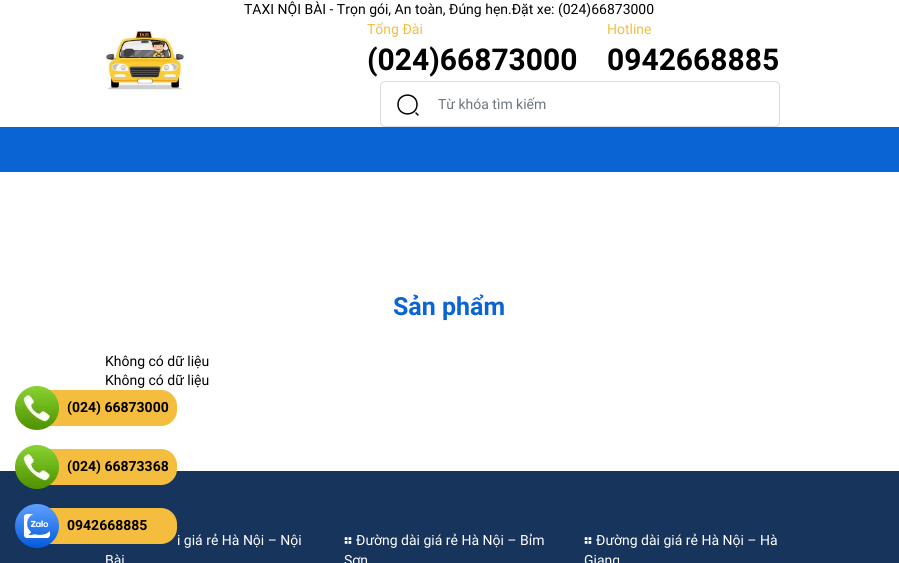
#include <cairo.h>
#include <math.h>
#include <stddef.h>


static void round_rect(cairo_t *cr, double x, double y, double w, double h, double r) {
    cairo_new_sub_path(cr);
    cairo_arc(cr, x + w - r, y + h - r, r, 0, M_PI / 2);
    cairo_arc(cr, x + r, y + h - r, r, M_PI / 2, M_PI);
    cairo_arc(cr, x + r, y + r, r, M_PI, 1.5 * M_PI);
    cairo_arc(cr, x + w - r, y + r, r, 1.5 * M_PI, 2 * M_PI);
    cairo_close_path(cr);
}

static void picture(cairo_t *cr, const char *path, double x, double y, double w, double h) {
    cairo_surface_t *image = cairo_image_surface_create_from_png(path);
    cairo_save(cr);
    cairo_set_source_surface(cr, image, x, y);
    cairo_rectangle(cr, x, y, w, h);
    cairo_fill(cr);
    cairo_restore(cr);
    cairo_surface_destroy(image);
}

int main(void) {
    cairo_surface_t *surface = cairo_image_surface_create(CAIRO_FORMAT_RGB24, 899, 563);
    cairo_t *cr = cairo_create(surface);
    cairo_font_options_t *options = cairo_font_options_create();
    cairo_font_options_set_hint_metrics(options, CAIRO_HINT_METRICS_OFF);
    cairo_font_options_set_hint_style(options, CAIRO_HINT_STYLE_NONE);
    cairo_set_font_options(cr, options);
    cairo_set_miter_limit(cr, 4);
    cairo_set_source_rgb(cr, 1, 1, 1);
    cairo_paint(cr);
    cairo_select_font_face(cr, "Roboto", CAIRO_FONT_SLANT_NORMAL, CAIRO_FONT_WEIGHT_NORMAL);
    cairo_set_font_size(cr, 14);
    cairo_set_source_rgb(cr, 0, 0, 0);
    cairo_move_to(cr, 244, 14);
    cairo_show_text(cr, "TAXI NỘI BÀI - Trọn gói, An toàn, Đúng hẹn.Đặt xe: (024)66873000");
    picture(cr, "img1.png", 105, 30, 80, 60);
    cairo_set_source_rgb(cr, 0.957, 0.741, 0.239);
    cairo_move_to(cr, 367, 34);
    cairo_show_text(cr, "Tổng Đài");
    cairo_select_font_face(cr, "Roboto", CAIRO_FONT_SLANT_NORMAL, CAIRO_FONT_WEIGHT_BOLD);
    cairo_set_font_size(cr, 30);
    cairo_set_source_rgb(cr, 0, 0, 0);
    cairo_move_to(cr, 367, 70);
    cairo_show_text(cr, "(024)66873000");
    cairo_select_font_face(cr, "Roboto", CAIRO_FONT_SLANT_NORMAL, CAIRO_FONT_WEIGHT_NORMAL);
    cairo_set_font_size(cr, 14);
    cairo_set_source_rgb(cr, 0.957, 0.741, 0.239);
    cairo_move_to(cr, 607, 34);
    cairo_show_text(cr, "Hotline");
    cairo_select_font_face(cr, "Roboto", CAIRO_FONT_SLANT_NORMAL, CAIRO_FONT_WEIGHT_BOLD);
    cairo_set_font_size(cr, 30);
    cairo_set_source_rgb(cr, 0, 0, 0);
    cairo_move_to(cr, 607, 70);
    cairo_show_text(cr, "0942668885");
    round_rect(cr, 380.5, 81.5, 399, 45, 4.5);
    cairo_set_source_rgb(cr, 0.859, 0.859, 0.859);
    cairo_set_line_width(cr, 1);
    cairo_stroke(cr);
    cairo_new_path(cr);
    cairo_move_to(cr, 417, 104.5);
    cairo_curve_to(cr, 417, 117, 398, 117, 398, 104.5);
    cairo_curve_to(cr, 398, 92, 417, 92, 417, 104.5);
    cairo_close_path(cr);
    cairo_move_to(cr, 418, 115);
    cairo_line_to(cr, 416, 113);
    cairo_set_source_rgb(cr, 0, 0, 0);
    cairo_set_line_width(cr, 1.5);
    cairo_set_line_cap(cr, CAIRO_LINE_CAP_ROUND);
    cairo_set_line_join(cr, CAIRO_LINE_JOIN_ROUND);
    cairo_stroke(cr);
    cairo_select_font_face(cr, "Roboto", CAIRO_FONT_SLANT_NORMAL, CAIRO_FONT_WEIGHT_NORMAL);
    cairo_set_font_size(cr, 14);
    cairo_set_source_rgb(cr, 0.424, 0.459, 0.49);
    cairo_move_to(cr, 438, 109);
    cairo_show_text(cr, "Từ khóa tìm kiếm");
    cairo_set_source_rgb(cr, 0.043, 0.392, 0.831);
    cairo_rectangle(cr, 0, 127, 899, 45);
    cairo_fill(cr);
    cairo_select_font_face(cr, "Roboto", CAIRO_FONT_SLANT_NORMAL, CAIRO_FONT_WEIGHT_BOLD);
    cairo_set_font_size(cr, 25);
    cairo_move_to(cr, 393, 315);
    cairo_show_text(cr, "Sản phẩm");
    cairo_select_font_face(cr, "Roboto", CAIRO_FONT_SLANT_NORMAL, CAIRO_FONT_WEIGHT_NORMAL);
    cairo_set_font_size(cr, 14);
    cairo_set_source_rgb(cr, 0, 0, 0);
    cairo_move_to(cr, 105, 366);
    cairo_show_text(cr, "Không có dữ liệu");
    cairo_move_to(cr, 105, 385);
    cairo_show_text(cr, "Không có dữ liệu");
    cairo_set_source_rgb(cr, 0.09, 0.208, 0.361);
    cairo_rectangle(cr, 0, 471, 899, 92);
    cairo_fill(cr);
    cairo_set_source_rgb(cr, 0.957, 0.741, 0.239);
    round_rect(cr, 19, 390, 158, 36, 16);
    cairo_fill(cr);
    picture(cr, "img2.png", 15, 386, 44, 44);
    cairo_select_font_face(cr, "Roboto", CAIRO_FONT_SLANT_NORMAL, CAIRO_FONT_WEIGHT_BOLD);
    cairo_set_source_rgb(cr, 0, 0, 0);
    cairo_move_to(cr, 67, 412);
    cairo_show_text(cr, "(024) 66873000");
    cairo_set_source_rgb(cr, 0.957, 0.741, 0.239);
    round_rect(cr, 19, 449, 158, 36, 16);
    cairo_fill(cr);
    picture(cr, "img3.png", 15, 445, 44, 44);
    cairo_set_source_rgb(cr, 0, 0, 0);
    cairo_move_to(cr, 67, 471);
    cairo_show_text(cr, "(024) 66873368");
    cairo_set_source_rgb(cr, 0.957, 0.741, 0.239);
    round_rect(cr, 19, 508, 158, 36, 16);
    cairo_fill(cr);
    picture(cr, "img4.png", 15, 504, 44, 44);
    cairo_set_source_rgb(cr, 0, 0, 0);
    cairo_move_to(cr, 67, 530);
    cairo_show_text(cr, "0942668885");
    cairo_select_font_face(cr, "Roboto", CAIRO_FONT_SLANT_NORMAL, CAIRO_FONT_WEIGHT_NORMAL);
    cairo_set_source_rgb(cr, 1, 1, 1);
    cairo_move_to(cr, 177, 545);
    cairo_show_text(cr, "i giá rẻ Hà Nội – Nội");
    cairo_move_to(cr, 105, 565);
    cairo_show_text(cr, "Bài");
    picture(cr, "img5.png", 344, 537, 8, 7);
    cairo_move_to(cr, 356, 545);
    cairo_show_text(cr, "Đường dài giá rẻ Hà Nội – Bỉm");
    cairo_move_to(cr, 344, 565);
    cairo_show_text(cr, "Sơn");
    picture(cr, "img5.png", 584, 537, 8, 7);
    cairo_move_to(cr, 596, 545);
    cairo_show_text(cr, "Đường dài giá rẻ Hà Nội – Hà");
    cairo_move_to(cr, 584, 565);
    cairo_show_text(cr, "Giang");
    cairo_surface_write_to_png(surface, "page.png");
    cairo_font_options_destroy(options);
    cairo_destroy(cr);
    cairo_surface_destroy(surface);
    return 0;
}
